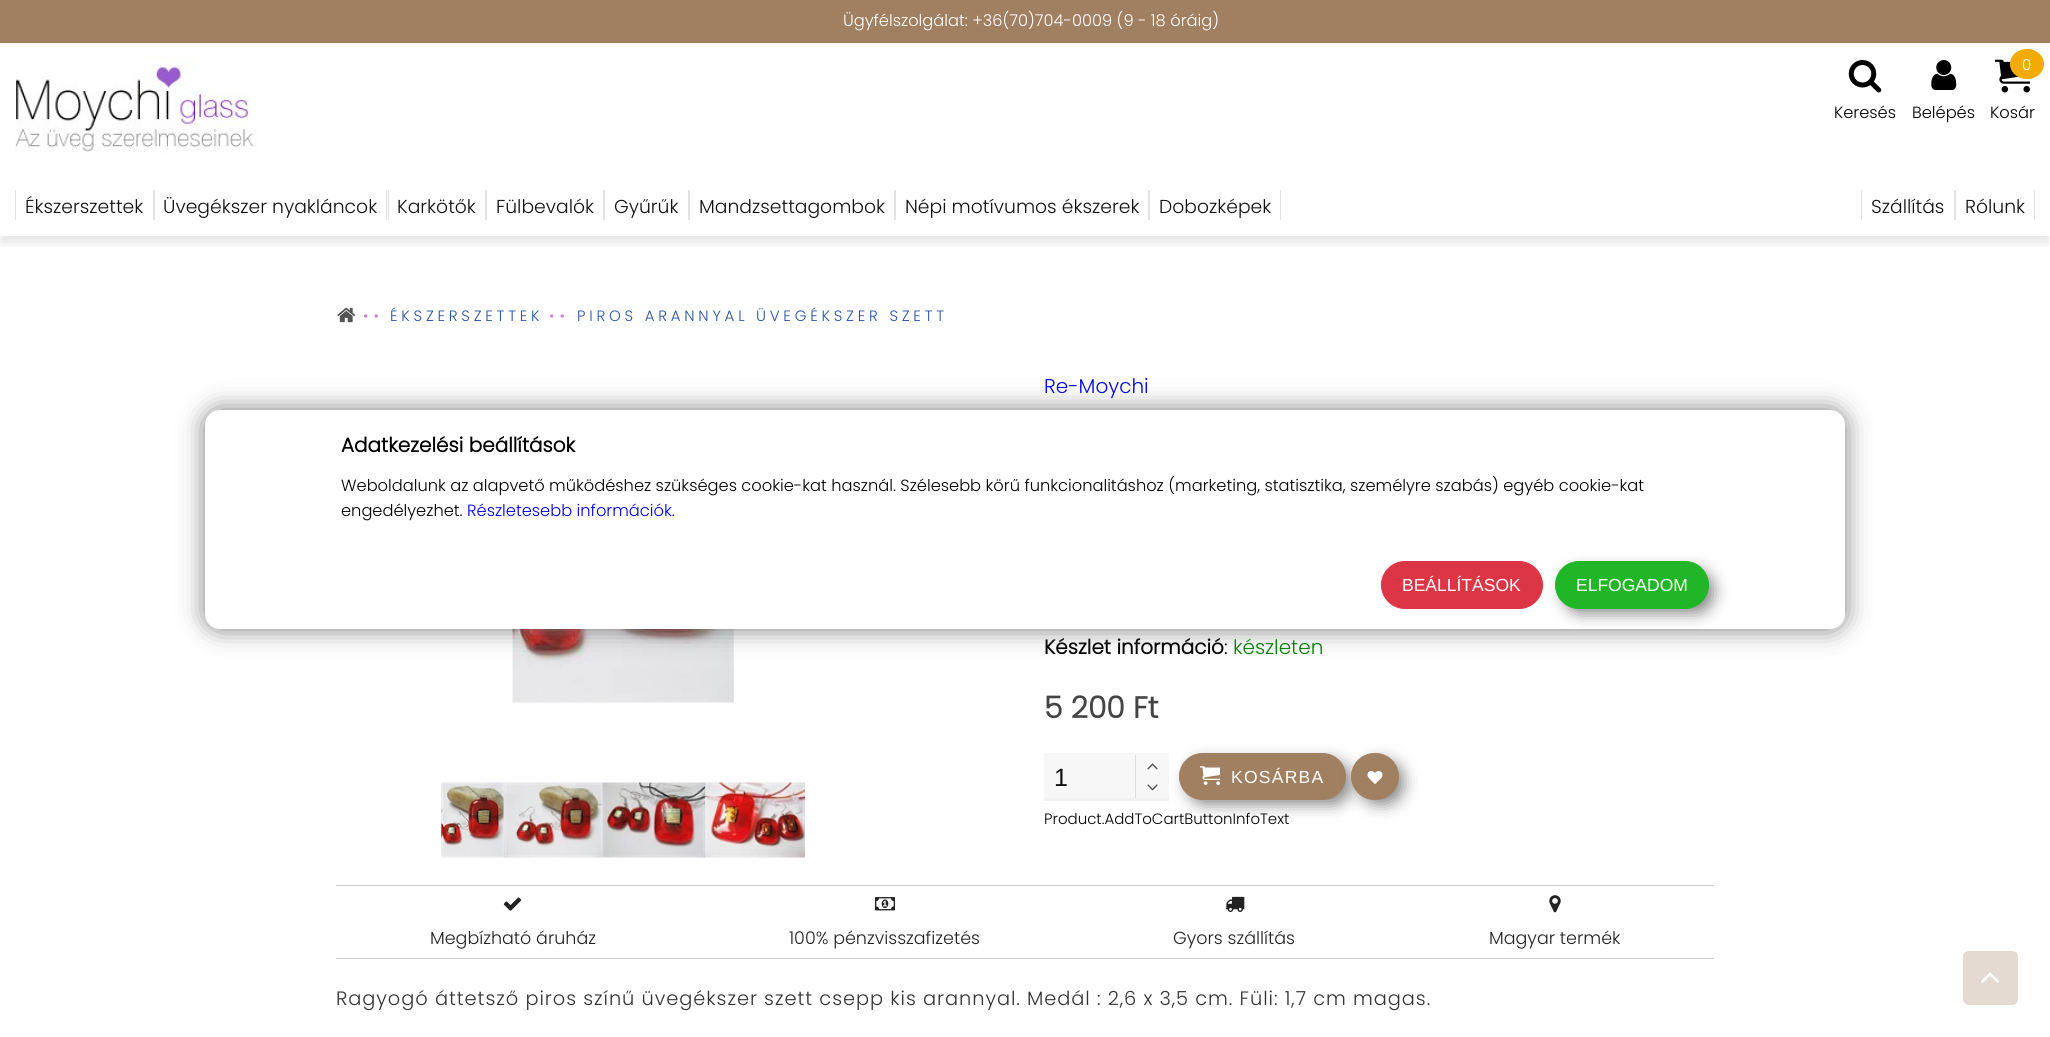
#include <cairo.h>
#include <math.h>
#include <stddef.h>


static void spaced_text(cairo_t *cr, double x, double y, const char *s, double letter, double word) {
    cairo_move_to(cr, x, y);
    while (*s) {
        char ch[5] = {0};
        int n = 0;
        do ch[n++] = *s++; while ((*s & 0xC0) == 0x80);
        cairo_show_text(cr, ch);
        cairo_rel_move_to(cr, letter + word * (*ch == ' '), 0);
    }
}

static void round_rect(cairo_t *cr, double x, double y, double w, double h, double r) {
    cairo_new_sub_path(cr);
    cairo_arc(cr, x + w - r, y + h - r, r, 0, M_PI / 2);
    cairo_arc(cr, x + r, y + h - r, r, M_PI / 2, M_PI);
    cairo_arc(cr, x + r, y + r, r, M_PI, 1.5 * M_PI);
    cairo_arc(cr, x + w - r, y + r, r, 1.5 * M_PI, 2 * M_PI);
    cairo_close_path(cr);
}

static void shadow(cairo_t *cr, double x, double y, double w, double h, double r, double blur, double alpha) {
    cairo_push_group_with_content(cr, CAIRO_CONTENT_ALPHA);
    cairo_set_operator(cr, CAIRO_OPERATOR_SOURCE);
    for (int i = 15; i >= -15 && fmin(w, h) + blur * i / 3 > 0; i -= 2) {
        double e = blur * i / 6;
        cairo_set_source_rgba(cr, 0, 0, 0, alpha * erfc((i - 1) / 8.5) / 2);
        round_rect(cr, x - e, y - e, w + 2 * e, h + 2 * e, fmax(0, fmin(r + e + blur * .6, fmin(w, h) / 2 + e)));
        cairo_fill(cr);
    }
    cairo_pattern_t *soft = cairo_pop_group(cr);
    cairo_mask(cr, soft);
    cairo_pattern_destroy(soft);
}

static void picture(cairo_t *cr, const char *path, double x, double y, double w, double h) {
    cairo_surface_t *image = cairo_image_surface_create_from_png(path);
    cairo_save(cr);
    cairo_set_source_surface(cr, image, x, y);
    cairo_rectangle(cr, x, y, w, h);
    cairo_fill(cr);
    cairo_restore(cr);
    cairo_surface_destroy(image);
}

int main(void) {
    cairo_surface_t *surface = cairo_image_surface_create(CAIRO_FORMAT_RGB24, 2050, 1037);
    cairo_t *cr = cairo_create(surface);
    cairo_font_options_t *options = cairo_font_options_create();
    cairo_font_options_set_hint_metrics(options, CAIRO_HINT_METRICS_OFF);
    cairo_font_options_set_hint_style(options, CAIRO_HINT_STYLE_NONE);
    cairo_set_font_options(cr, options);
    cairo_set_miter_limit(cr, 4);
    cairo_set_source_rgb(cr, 1, 1, 1);
    cairo_paint(cr);
    cairo_set_source_rgb(cr, 0.631, 0.502, 0.38);
    cairo_rectangle(cr, 0, 0, 2050, 43);
    cairo_fill(cr);
    cairo_select_font_face(cr, "Poppins Light", CAIRO_FONT_SLANT_NORMAL, CAIRO_FONT_WEIGHT_NORMAL);
    cairo_set_font_size(cr, 16.25);
    cairo_set_source_rgb(cr, 1, 1, 1);
    cairo_move_to(cr, 843, 26);
    cairo_show_text(cr, "Ügyfélszolgálat: +36(70)704-0009 (9 - 18 óráig)");
    picture(cr, "img1.png", 15, 55, 243, 99);
    picture(cr, "img2.png", 1848, 60, 34, 33);
    cairo_set_source_rgb(cr, 0, 0, 0);
    cairo_move_to(cr, 1834, 118);
    cairo_show_text(cr, "Keresés");
    picture(cr, "img3.png", 1931, 60, 26, 30);
    cairo_move_to(cr, 1912, 118);
    cairo_show_text(cr, "Belépés");
    picture(cr, "img4.png", 1995, 59, 35, 34);
    cairo_set_source_rgb(cr, 0.957, 0.671, 0);
    cairo_new_path(cr);
    cairo_move_to(cr, 2027, 49);
    cairo_curve_to(cr, 2036.5, 49, 2044, 55.5, 2044, 64);
    cairo_curve_to(cr, 2044, 72.5, 2036.5, 79, 2027, 79);
    cairo_curve_to(cr, 2017.5, 79, 2010, 72.5, 2010, 64);
    cairo_curve_to(cr, 2010, 55.5, 2017.5, 49, 2027, 49);
    cairo_close_path(cr);
    cairo_fill(cr);
    cairo_set_font_size(cr, 15);
    cairo_set_source_rgb(cr, 1, 1, 1);
    cairo_move_to(cr, 2022, 70);
    cairo_show_text(cr, "0");
    cairo_set_font_size(cr, 16.25);
    cairo_set_source_rgb(cr, 0, 0, 0);
    cairo_move_to(cr, 1990, 118);
    cairo_show_text(cr, "Kosár");
    cairo_save(cr);
    cairo_rectangle(cr, 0, 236, 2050, 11);
    cairo_clip(cr);
    cairo_set_source_rgb(cr, 0, 0, 0);
    shadow(cr, 0, 183, 2050, 60, 0, 5, 0.1);
    cairo_restore(cr);
    cairo_set_source_rgb(cr, 0.886, 0.886, 0.886);
    cairo_rectangle(cr, 15, 190, 1, 30);
    cairo_fill(cr);
    cairo_set_font_size(cr, 18.75);
    cairo_set_source_rgb(cr, 0.067, 0.067, 0.067);
    cairo_move_to(cr, 25, 213);
    cairo_show_text(cr, "Ékszerszettek");
    cairo_set_source_rgb(cr, 0.886, 0.886, 0.886);
    cairo_rectangle(cr, 153, 190, 2, 30);
    cairo_fill(cr);
    cairo_set_source_rgb(cr, 0.067, 0.067, 0.067);
    cairo_move_to(cr, 163, 213);
    cairo_show_text(cr, "Üvegékszer nyakláncok");
    cairo_set_source_rgb(cr, 0.886, 0.886, 0.886);
    cairo_rectangle(cr, 386, 190, 1, 30);
    cairo_fill(cr);
    cairo_rectangle(cr, 388, 190, 1, 30);
    cairo_fill(cr);
    cairo_set_source_rgb(cr, 0.067, 0.067, 0.067);
    cairo_move_to(cr, 397, 213);
    cairo_show_text(cr, "Karkötők");
    cairo_set_source_rgb(cr, 0.886, 0.886, 0.886);
    cairo_rectangle(cr, 485, 190, 2, 30);
    cairo_fill(cr);
    cairo_set_source_rgb(cr, 0.067, 0.067, 0.067);
    cairo_move_to(cr, 496, 213);
    cairo_show_text(cr, "Fülbevalók");
    cairo_set_source_rgb(cr, 0.886, 0.886, 0.886);
    cairo_rectangle(cr, 603, 190, 2, 30);
    cairo_fill(cr);
    cairo_set_source_rgb(cr, 0.067, 0.067, 0.067);
    cairo_move_to(cr, 614, 213);
    cairo_show_text(cr, "Gyűrűk");
    cairo_set_source_rgb(cr, 0.886, 0.886, 0.886);
    cairo_rectangle(cr, 688, 190, 2, 30);
    cairo_fill(cr);
    cairo_set_source_rgb(cr, 0.067, 0.067, 0.067);
    cairo_move_to(cr, 699, 213);
    cairo_show_text(cr, "Mandzsettagombok");
    cairo_set_source_rgb(cr, 0.886, 0.886, 0.886);
    cairo_rectangle(cr, 894, 190, 2, 30);
    cairo_fill(cr);
    cairo_set_source_rgb(cr, 0.067, 0.067, 0.067);
    cairo_move_to(cr, 905, 213);
    cairo_show_text(cr, "Népi motívumos ékszerek");
    cairo_set_source_rgb(cr, 0.886, 0.886, 0.886);
    cairo_rectangle(cr, 1148, 190, 2, 30);
    cairo_fill(cr);
    cairo_set_source_rgb(cr, 0.067, 0.067, 0.067);
    cairo_move_to(cr, 1159, 213);
    cairo_show_text(cr, "Dobozképek");
    cairo_set_source_rgb(cr, 0.886, 0.886, 0.886);
    cairo_rectangle(cr, 1280, 190, 1, 30);
    cairo_fill(cr);
    cairo_rectangle(cr, 1861, 190, 1, 30);
    cairo_fill(cr);
    cairo_set_source_rgb(cr, 0.067, 0.067, 0.067);
    cairo_move_to(cr, 1871, 213);
    cairo_show_text(cr, "Szállítás");
    cairo_set_source_rgb(cr, 0.886, 0.886, 0.886);
    cairo_rectangle(cr, 1954, 190, 2, 30);
    cairo_fill(cr);
    cairo_set_source_rgb(cr, 0.067, 0.067, 0.067);
    cairo_move_to(cr, 1965, 213);
    cairo_show_text(cr, "Rólunk");
    cairo_set_source_rgb(cr, 0.886, 0.886, 0.886);
    cairo_rectangle(cr, 2034, 190, 1, 30);
    cairo_fill(cr);
    picture(cr, "img5.png", 337, 307, 19, 16);
    cairo_set_font_size(cr, 15);
    cairo_set_source_rgb(cr, 0.831, 0.514, 0.831);
    spaced_text(cr, 363, 321, "••", 5, 0);
    cairo_set_source_rgb(cr, 0.157, 0.322, 0.624);
    spaced_text(cr, 390, 321, "ÉKSZERSZETTEK", 3.75, 0);
    cairo_set_source_rgb(cr, 0.831, 0.514, 0.831);
    spaced_text(cr, 549, 321, "••", 5, 0);
    cairo_set_source_rgb(cr, 0.157, 0.322, 0.624);
    spaced_text(cr, 577, 321, "PIROS ARANNYAL ÜVEGÉKSZER SZETT", 3.75, 0);
    picture(cr, "img6.png", 512, 629, 222, 74);
    picture(cr, "img7.png", 441, 782, 63, 76);
    picture(cr, "img8.png", 503, 782, 100, 76);
    picture(cr, "img9.png", 602, 782, 103, 76);
    picture(cr, "img10.png", 705, 782, 100, 76);
    cairo_set_font_size(cr, 20);
    cairo_set_source_rgb(cr, 0, 0, 0.933);
    cairo_move_to(cr, 1044, 393);
    cairo_show_text(cr, "Re-Moychi");
    cairo_select_font_face(cr, "Poppins", CAIRO_FONT_SLANT_NORMAL, CAIRO_FONT_WEIGHT_BOLD);
    cairo_set_source_rgb(cr, 0, 0, 0);
    cairo_move_to(cr, 1044, 654);
    cairo_show_text(cr, "Készlet információ");
    cairo_select_font_face(cr, "Poppins Light", CAIRO_FONT_SLANT_NORMAL, CAIRO_FONT_WEIGHT_NORMAL);
    cairo_move_to(cr, 1224, 654);
    cairo_show_text(cr, ":");
    cairo_set_source_rgb(cr, 0, 0.502, 0);
    cairo_move_to(cr, 1233, 654);
    cairo_show_text(cr, "készleten");
    cairo_select_font_face(cr, "Poppins", CAIRO_FONT_SLANT_NORMAL, CAIRO_FONT_WEIGHT_BOLD);
    cairo_set_font_size(cr, 30);
    cairo_set_source_rgb(cr, 0.267, 0.267, 0.267);
    cairo_move_to(cr, 1044, 718);
    cairo_show_text(cr, "5 200 Ft");
    cairo_set_source_rgb(cr, 0.965, 0.965, 0.965);
    cairo_rectangle(cr, 1044, 753, 125, 45);
    cairo_fill(cr);
    cairo_set_source_rgb(cr, 0.945, 0.945, 0.945);
    cairo_rectangle(cr, 1044, 798, 125, 3);
    cairo_fill(cr);
    cairo_select_font_face(cr, "Liberation Sans", CAIRO_FONT_SLANT_NORMAL, CAIRO_FONT_WEIGHT_NORMAL);
    cairo_set_font_size(cr, 25);
    cairo_set_source_rgb(cr, 0.067, 0.067, 0.067);
    cairo_move_to(cr, 1054, 786);
    cairo_show_text(cr, "1");
    cairo_set_source_rgb(cr, 0.867, 0.867, 0.867);
    cairo_rectangle(cr, 1135, 755, 1, 43);
    cairo_fill(cr);
    picture(cr, "img11.png", 1147, 763, 11, 7);
    picture(cr, "img12.png", 1147, 784, 11, 7);
    cairo_set_source_rgb(cr, 0, 0, 0);
    shadow(cr, 1188, 761, 162, 43, 21.5, 8, 0.49);
    cairo_set_source_rgb(cr, 0.631, 0.502, 0.38);
    round_rect(cr, 1179.5, 753.5, 166, 46, 23);
    cairo_fill_preserve(cr);
    cairo_set_line_width(cr, 1);
    cairo_stroke(cr);
    picture(cr, "img13.png", 1200, 766, 20, 19);
    cairo_set_font_size(cr, 17.5);
    cairo_set_source_rgb(cr, 1, 1, 1);
    spaced_text(cr, 1231, 783, "KOSÁRBA", 1.25, 0);
    cairo_set_source_rgb(cr, 0, 0, 0);
    shadow(cr, 1360, 761, 43, 43, 21.5, 8, 0.49);
    cairo_set_source_rgb(cr, 0.631, 0.502, 0.38);
    round_rect(cr, 1351.5, 753.5, 47, 46, 23);
    cairo_fill_preserve(cr);
    cairo_stroke(cr);
    picture(cr, "img14.png", 1367, 771, 16, 13);
    cairo_select_font_face(cr, "Poppins Light", CAIRO_FONT_SLANT_NORMAL, CAIRO_FONT_WEIGHT_NORMAL);
    cairo_set_font_size(cr, 15);
    cairo_set_source_rgb(cr, 0, 0, 0);
    cairo_move_to(cr, 1044, 824);
    cairo_show_text(cr, "Product.AddToCartButtonInfoText");
    cairo_set_source_rgb(cr, 0.8, 0.8, 0.8);
    cairo_rectangle(cr, 336, 885, 1378, 1);
    cairo_fill(cr);
    cairo_rectangle(cr, 336, 958, 1378, 1);
    cairo_fill(cr);
    picture(cr, "img15.png", 503, 897, 19, 14);
    cairo_set_font_size(cr, 17.5);
    cairo_set_source_rgb(cr, 0.133, 0.133, 0.133);
    cairo_move_to(cr, 430, 944);
    cairo_show_text(cr, "Megbízható áruház");
    picture(cr, "img16.png", 875, 897, 20, 14);
    cairo_move_to(cr, 789, 944);
    cairo_show_text(cr, "100% pénzvisszafizetés");
    picture(cr, "img17.png", 1225, 896, 20, 16);
    cairo_move_to(cr, 1173, 944);
    cairo_show_text(cr, "Gyors szállítás");
    picture(cr, "img18.png", 1549, 895, 12, 18);
    cairo_move_to(cr, 1489, 944);
    cairo_show_text(cr, "Magyar termék");
    cairo_set_font_size(cr, 19.38);
    cairo_set_source_rgb(cr, 0.2, 0.2, 0.2);
    spaced_text(cr, 336, 1005, "Ragyogó áttetsző piros színű üvegékszer szett csepp kis arannyal. Medál : 2,6 x 3,5 cm. Füli: 1,7 cm magas.", 0.94, 0);
    cairo_set_source_rgb(cr, 0.478, 0.478, 0.478);
    shadow(cr, 205, 410, 1640, 219, 15, 12.5, 1);
    cairo_set_source_rgb(cr, 1, 1, 1);
    round_rect(cr, 205, 410, 1640, 219, 15);
    cairo_fill(cr);
    cairo_select_font_face(cr, "Poppins", CAIRO_FONT_SLANT_NORMAL, CAIRO_FONT_WEIGHT_BOLD);
    cairo_set_font_size(cr, 20);
    cairo_set_source_rgb(cr, 0, 0, 0);
    cairo_move_to(cr, 341, 452);
    cairo_show_text(cr, "Adatkezelési beállítások");
    cairo_select_font_face(cr, "Poppins Light", CAIRO_FONT_SLANT_NORMAL, CAIRO_FONT_WEIGHT_NORMAL);
    cairo_set_font_size(cr, 16.25);
    cairo_move_to(cr, 341, 491);
    cairo_show_text(cr, "Weboldalunk az alapvető működéshez szükséges cookie-kat használ. Szélesebb körű funkcionalitáshoz (marketing, statisztika, személyre szabás) egyéb cookie-kat");
    cairo_move_to(cr, 341, 516);
    cairo_show_text(cr, "engedélyezhet.");
    cairo_set_source_rgb(cr, 0, 0, 0.933);
    cairo_move_to(cr, 467, 516);
    cairo_show_text(cr, "Részletesebb információk.");
    cairo_set_source_rgb(cr, 0.863, 0.208, 0.271);
    round_rect(cr, 1381.5, 561.5, 161, 47, 23.5);
    cairo_fill_preserve(cr);
    cairo_stroke(cr);
    cairo_select_font_face(cr, "Liberation Sans", CAIRO_FONT_SLANT_NORMAL, CAIRO_FONT_WEIGHT_NORMAL);
    cairo_set_font_size(cr, 17.5);
    cairo_set_source_rgb(cr, 1, 1, 1);
    cairo_move_to(cr, 1402, 591);
    cairo_show_text(cr, "BEÁLLÍTÁSOK");
    cairo_set_source_rgb(cr, 0, 0, 0);
    shadow(cr, 1564, 570, 149, 43, 21.5, 8, 0.49);
    cairo_set_source_rgb(cr, 0.129, 0.714, 0.153);
    round_rect(cr, 1555.5, 561.5, 153, 47, 23.5);
    cairo_fill_preserve(cr);
    cairo_stroke(cr);
    cairo_set_source_rgb(cr, 1, 1, 1);
    cairo_move_to(cr, 1576, 591);
    cairo_show_text(cr, "ELFOGADOM");
    cairo_set_source_rgb(cr, 0.894, 0.855, 0.82);
    round_rect(cr, 1963, 951, 55, 54, 6);
    cairo_fill(cr);
    picture(cr, "img19.png", 1981, 972, 18, 11);
    cairo_surface_write_to_png(surface, "page.png");
    cairo_font_options_destroy(options);
    cairo_destroy(cr);
    cairo_surface_destroy(surface);
    return 0;
}
